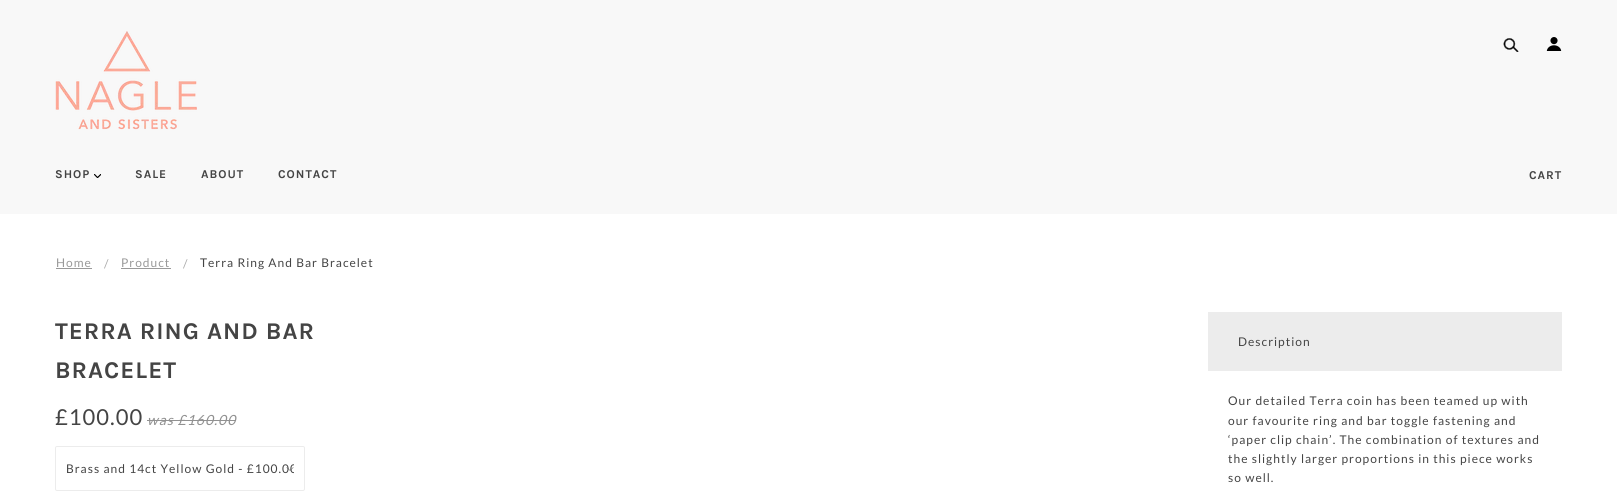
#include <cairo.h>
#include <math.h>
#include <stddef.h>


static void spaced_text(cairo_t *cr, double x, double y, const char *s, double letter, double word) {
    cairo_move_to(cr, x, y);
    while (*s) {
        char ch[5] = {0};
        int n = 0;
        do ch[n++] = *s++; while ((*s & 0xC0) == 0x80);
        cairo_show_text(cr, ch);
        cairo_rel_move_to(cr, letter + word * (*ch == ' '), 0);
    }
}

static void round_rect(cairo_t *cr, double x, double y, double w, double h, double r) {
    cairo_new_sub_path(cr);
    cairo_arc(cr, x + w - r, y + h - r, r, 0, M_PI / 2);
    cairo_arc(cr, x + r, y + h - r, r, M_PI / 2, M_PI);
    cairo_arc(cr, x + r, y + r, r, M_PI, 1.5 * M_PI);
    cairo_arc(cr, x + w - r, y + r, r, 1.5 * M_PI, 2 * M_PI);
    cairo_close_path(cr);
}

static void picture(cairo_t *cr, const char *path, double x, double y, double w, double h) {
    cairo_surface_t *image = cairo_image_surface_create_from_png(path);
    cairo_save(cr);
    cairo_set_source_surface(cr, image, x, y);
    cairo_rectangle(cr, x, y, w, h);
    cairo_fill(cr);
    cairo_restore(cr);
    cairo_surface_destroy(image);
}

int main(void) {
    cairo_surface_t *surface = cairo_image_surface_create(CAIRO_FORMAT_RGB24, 1617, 498);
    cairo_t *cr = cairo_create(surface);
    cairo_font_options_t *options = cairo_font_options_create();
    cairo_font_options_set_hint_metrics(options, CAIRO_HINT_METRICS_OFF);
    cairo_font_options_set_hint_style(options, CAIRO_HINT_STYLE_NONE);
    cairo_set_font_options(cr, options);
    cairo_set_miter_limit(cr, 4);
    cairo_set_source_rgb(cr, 1, 1, 1);
    cairo_paint(cr);
    cairo_set_source_rgb(cr, 0.969, 0.969, 0.969);
    cairo_rectangle(cr, 0, 0, 1617, 214);
    cairo_fill(cr);
    picture(cr, "img1.png", 55, 31, 142, 99);
    picture(cr, "img2.png", 1503, 38, 16, 14);
    picture(cr, "img3.png", 1546, 37, 16, 14);
    cairo_select_font_face(cr, "Karla", CAIRO_FONT_SLANT_NORMAL, CAIRO_FONT_WEIGHT_BOLD);
    cairo_set_font_size(cr, 12);
    cairo_set_source_rgb(cr, 0.267, 0.267, 0.267);
    spaced_text(cr, 55, 178, "SHOP", 1, 0);
    picture(cr, "img4.png", 94, 174, 7, 4);
    spaced_text(cr, 135, 178, "SALE", 1, 0);
    spaced_text(cr, 201, 178, "ABOUT", 1, 0);
    spaced_text(cr, 278, 178, "CONTACT", 1, 0);
    spaced_text(cr, 1529, 179, "CART", 1, 0);
    cairo_select_font_face(cr, "Lato", CAIRO_FONT_SLANT_NORMAL, CAIRO_FONT_WEIGHT_NORMAL);
    cairo_set_source_rgb(cr, 0.6, 0.6, 0.6);
    spaced_text(cr, 56, 267, "Home", 1, 0);
    cairo_rectangle(cr, 56, 268, 36, 1);
    cairo_fill(cr);
    cairo_set_source_rgb(cr, 0.667, 0.667, 0.667);
    spaced_text(cr, 104, 268, "/", 1, 0);
    cairo_set_source_rgb(cr, 0.6, 0.6, 0.6);
    spaced_text(cr, 121, 267, "Product", 1, 0);
    cairo_rectangle(cr, 121, 268, 50, 1);
    cairo_fill(cr);
    cairo_set_source_rgb(cr, 0.667, 0.667, 0.667);
    spaced_text(cr, 183, 268, "/", 1, 0);
    cairo_set_source_rgb(cr, 0.267, 0.267, 0.267);
    spaced_text(cr, 200, 267, "Terra Ring And Bar Bracelet", 1, 0);
    cairo_select_font_face(cr, "Karla", CAIRO_FONT_SLANT_NORMAL, CAIRO_FONT_WEIGHT_BOLD);
    cairo_set_font_size(cr, 24);
    spaced_text(cr, 55, 339, "TERRA RING AND BAR", 1, 0);
    spaced_text(cr, 55, 378, "BRACELET", 1, 0);
    cairo_set_source_rgb(cr, 0.922, 0.922, 0.922);
    cairo_rectangle(cr, 1208, 312, 354, 59);
    cairo_fill(cr);
    cairo_select_font_face(cr, "Lato", CAIRO_FONT_SLANT_NORMAL, CAIRO_FONT_WEIGHT_NORMAL);
    cairo_set_font_size(cr, 12);
    cairo_set_source_rgb(cr, 0.267, 0.267, 0.267);
    spaced_text(cr, 1238, 346, "Description", 1, 0);
    spaced_text(cr, 1228, 405, "Our detailed Terra coin has been teamed up with", 1, 0);
    spaced_text(cr, 1228, 425, "our favourite ring and bar toggle fastening and", 1, 0);
    spaced_text(cr, 1228, 444, "‘paper clip chain’. The combination of textures and", 1, 0);
    spaced_text(cr, 1228, 463, "the slightly larger proportions in this piece works", 1, 0);
    spaced_text(cr, 1228, 482, "so well.", 1, 0);
    cairo_set_font_size(cr, 22);
    spaced_text(cr, 55, 425, "£100.00", 1, 0);
    cairo_select_font_face(cr, "Lato", CAIRO_FONT_SLANT_ITALIC, CAIRO_FONT_WEIGHT_NORMAL);
    cairo_set_font_size(cr, 14);
    cairo_set_source_rgb(cr, 0.569, 0.569, 0.569);
    spaced_text(cr, 147, 425, "was £160.00", 1, 0);
    cairo_rectangle(cr, 147, 420, 89, 1);
    cairo_fill(cr);
    picture(cr, "img5.png", 286, 467, 8, 4);
    round_rect(cr, 55.5, 446.5, 249, 44, 1.5);
    cairo_set_source_rgb(cr, 0.922, 0.922, 0.922);
    cairo_set_line_width(cr, 1);
    cairo_stroke(cr);
    cairo_save(cr);
    cairo_rectangle(cr, 66, 447, 228, 43);
    cairo_clip(cr);
    cairo_select_font_face(cr, "Lato", CAIRO_FONT_SLANT_NORMAL, CAIRO_FONT_WEIGHT_NORMAL);
    cairo_set_font_size(cr, 12);
    cairo_set_source_rgb(cr, 0.267, 0.267, 0.267);
    spaced_text(cr, 66, 473, "Brass and 14ct Yellow Gold - £100.00", 1, 0);
    cairo_restore(cr);
    cairo_surface_write_to_png(surface, "page.png");
    cairo_font_options_destroy(options);
    cairo_destroy(cr);
    cairo_surface_destroy(surface);
    return 0;
}
